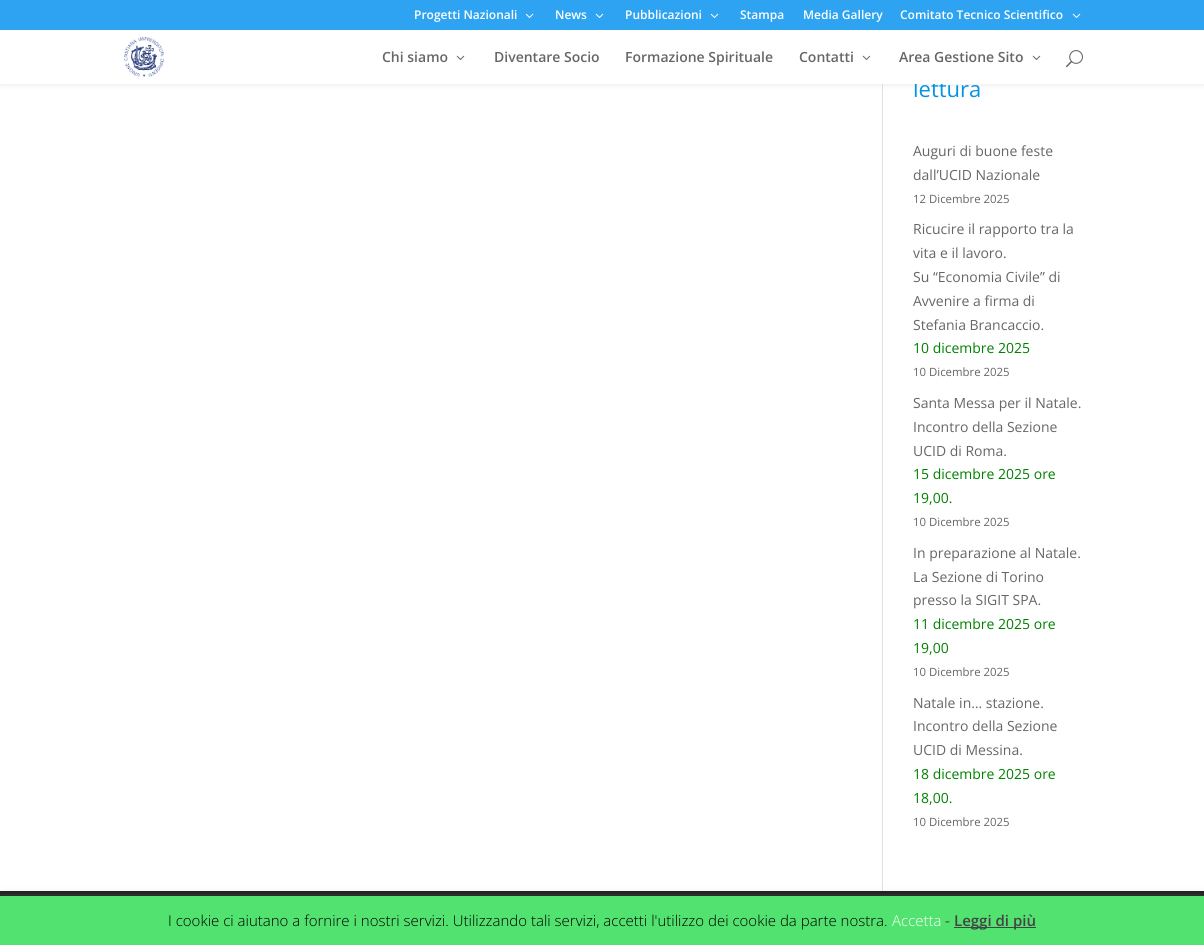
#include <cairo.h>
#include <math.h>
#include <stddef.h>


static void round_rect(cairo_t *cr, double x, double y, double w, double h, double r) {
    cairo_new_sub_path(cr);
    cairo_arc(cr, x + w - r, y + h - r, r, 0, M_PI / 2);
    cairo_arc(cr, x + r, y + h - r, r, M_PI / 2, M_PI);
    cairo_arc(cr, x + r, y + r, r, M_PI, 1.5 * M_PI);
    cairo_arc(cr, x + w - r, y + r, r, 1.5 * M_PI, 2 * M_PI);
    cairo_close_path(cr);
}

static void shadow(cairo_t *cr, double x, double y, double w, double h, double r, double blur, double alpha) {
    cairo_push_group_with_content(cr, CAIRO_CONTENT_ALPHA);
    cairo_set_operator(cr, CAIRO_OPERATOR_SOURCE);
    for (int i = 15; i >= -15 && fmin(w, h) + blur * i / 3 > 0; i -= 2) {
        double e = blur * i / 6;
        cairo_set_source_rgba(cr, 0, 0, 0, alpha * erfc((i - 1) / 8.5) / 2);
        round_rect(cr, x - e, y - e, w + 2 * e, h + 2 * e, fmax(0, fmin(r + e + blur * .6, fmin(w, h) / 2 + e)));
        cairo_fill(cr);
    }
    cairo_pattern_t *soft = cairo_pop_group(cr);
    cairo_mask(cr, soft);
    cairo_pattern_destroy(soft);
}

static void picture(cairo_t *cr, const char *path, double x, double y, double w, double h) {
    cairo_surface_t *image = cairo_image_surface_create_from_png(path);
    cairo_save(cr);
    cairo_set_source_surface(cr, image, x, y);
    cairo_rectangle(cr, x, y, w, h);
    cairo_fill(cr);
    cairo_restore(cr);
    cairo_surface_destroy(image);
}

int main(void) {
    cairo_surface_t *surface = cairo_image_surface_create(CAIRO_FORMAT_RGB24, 1204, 945);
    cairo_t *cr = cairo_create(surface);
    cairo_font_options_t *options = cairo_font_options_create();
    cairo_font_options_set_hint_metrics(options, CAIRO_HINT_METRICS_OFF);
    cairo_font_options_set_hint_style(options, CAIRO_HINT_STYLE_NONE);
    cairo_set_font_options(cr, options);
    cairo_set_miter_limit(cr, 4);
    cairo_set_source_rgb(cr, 1, 1, 1);
    cairo_paint(cr);
    cairo_set_source_rgb(cr, 0.886, 0.886, 0.886);
    cairo_rectangle(cr, 882, 84, 1, 807);
    cairo_fill(cr);
    cairo_set_source_rgb(cr, 0, 0, 0);
    shadow(cr, 0, 30, 1204, 54, 0, 3.5, 0.1);
    cairo_set_source_rgb(cr, 0.18, 0.639, 0.949);
    cairo_rectangle(cr, 0, 0, 1204, 30);
    cairo_fill(cr);
    cairo_select_font_face(cr, "Open Sans SemiBold", CAIRO_FONT_SLANT_NORMAL, CAIRO_FONT_WEIGHT_NORMAL);
    cairo_set_font_size(cr, 12);
    cairo_set_source_rgb(cr, 1, 1, 1);
    cairo_move_to(cr, 414, 19);
    cairo_show_text(cr, "Progetti Nazionali");
    picture(cr, "img1.png", 525, 13, 9, 5);
    cairo_move_to(cr, 555, 19);
    cairo_show_text(cr, "News");
    picture(cr, "img1.png", 595, 13, 9, 5);
    cairo_move_to(cr, 625, 19);
    cairo_show_text(cr, "Pubblicazioni");
    picture(cr, "img1.png", 710, 13, 9, 5);
    cairo_move_to(cr, 740, 19);
    cairo_show_text(cr, "Stampa");
    cairo_move_to(cr, 803, 19);
    cairo_show_text(cr, "Media Gallery");
    cairo_move_to(cr, 900, 19);
    cairo_show_text(cr, "Comitato Tecnico Scientifico");
    picture(cr, "img1.png", 1072, 13, 9, 5);
    cairo_select_font_face(cr, "Open Sans", CAIRO_FONT_SLANT_NORMAL, CAIRO_FONT_WEIGHT_NORMAL);
    cairo_set_font_size(cr, 22);
    cairo_set_source_rgb(cr, 0.024, 0.576, 0.89);
    cairo_move_to(cr, 913, 97);
    cairo_show_text(cr, "lettura");
    cairo_set_source_rgb(cr, 1, 1, 1);
    cairo_rectangle(cr, 0, 30, 1204, 54);
    cairo_fill(cr);
    picture(cr, "img2.png", 124, 37, 40, 40);
    cairo_select_font_face(cr, "Open Sans SemiBold", CAIRO_FONT_SLANT_NORMAL, CAIRO_FONT_WEIGHT_NORMAL);
    cairo_set_font_size(cr, 14);
    cairo_set_source_rgb(cr, 0.4, 0.4, 0.4);
    cairo_move_to(cr, 382, 62);
    cairo_show_text(cr, "Chi siamo");
    picture(cr, "img3.png", 456, 55, 9, 5);
    cairo_move_to(cr, 494, 62);
    cairo_show_text(cr, "Diventare Socio");
    cairo_move_to(cr, 625, 62);
    cairo_show_text(cr, "Formazione Spirituale");
    cairo_move_to(cr, 799, 62);
    cairo_show_text(cr, "Contatti");
    picture(cr, "img3.png", 862, 55, 9, 5);
    cairo_move_to(cr, 899, 62);
    cairo_show_text(cr, "Area Gestione Sito");
    picture(cr, "img3.png", 1032, 55, 9, 5);
    picture(cr, "img4.png", 1066, 50, 17, 18);
    cairo_select_font_face(cr, "Open Sans", CAIRO_FONT_SLANT_NORMAL, CAIRO_FONT_WEIGHT_NORMAL);
    cairo_move_to(cr, 913, 156);
    cairo_show_text(cr, "Auguri di buone feste");
    cairo_move_to(cr, 913, 180);
    cairo_show_text(cr, "dall’UCID Nazionale");
    cairo_set_font_size(cr, 11.4);
    cairo_move_to(cr, 913, 203);
    cairo_show_text(cr, "12 Dicembre 2025");
    cairo_set_font_size(cr, 14);
    cairo_move_to(cr, 913, 234);
    cairo_show_text(cr, "Ricucire il rapporto tra la");
    cairo_move_to(cr, 913, 258);
    cairo_show_text(cr, "vita e il lavoro.");
    cairo_move_to(cr, 913, 282);
    cairo_show_text(cr, "Su “Economia Civile” di");
    cairo_move_to(cr, 913, 306);
    cairo_show_text(cr, "Avvenire a firma di");
    cairo_move_to(cr, 913, 330);
    cairo_show_text(cr, "Stefania Brancaccio.");
    cairo_set_source_rgb(cr, 0, 0.502, 0);
    cairo_move_to(cr, 913, 353);
    cairo_show_text(cr, "10 dicembre 2025");
    cairo_set_font_size(cr, 11.4);
    cairo_set_source_rgb(cr, 0.4, 0.4, 0.4);
    cairo_move_to(cr, 913, 376);
    cairo_show_text(cr, "10 Dicembre 2025");
    cairo_set_font_size(cr, 14);
    cairo_move_to(cr, 913, 408);
    cairo_show_text(cr, "Santa Messa per il Natale.");
    cairo_move_to(cr, 913, 432);
    cairo_show_text(cr, "Incontro della Sezione");
    cairo_move_to(cr, 913, 456);
    cairo_show_text(cr, "UCID di Roma.");
    cairo_set_source_rgb(cr, 0, 0.502, 0);
    cairo_move_to(cr, 913, 479);
    cairo_show_text(cr, "15 dicembre 2025 ore");
    cairo_move_to(cr, 913, 503);
    cairo_show_text(cr, "19,00.");
    cairo_set_font_size(cr, 11.4);
    cairo_set_source_rgb(cr, 0.4, 0.4, 0.4);
    cairo_move_to(cr, 913, 526);
    cairo_show_text(cr, "10 Dicembre 2025");
    cairo_set_font_size(cr, 14);
    cairo_move_to(cr, 913, 558);
    cairo_show_text(cr, "In preparazione al Natale.");
    cairo_move_to(cr, 913, 582);
    cairo_show_text(cr, "La Sezione di Torino");
    cairo_move_to(cr, 913, 605);
    cairo_show_text(cr, "presso la SIGIT SPA.");
    cairo_set_source_rgb(cr, 0, 0.502, 0);
    cairo_move_to(cr, 913, 629);
    cairo_show_text(cr, "11 dicembre 2025 ore");
    cairo_move_to(cr, 913, 653);
    cairo_show_text(cr, "19,00");
    cairo_set_font_size(cr, 11.4);
    cairo_set_source_rgb(cr, 0.4, 0.4, 0.4);
    cairo_move_to(cr, 913, 676);
    cairo_show_text(cr, "10 Dicembre 2025");
    cairo_set_font_size(cr, 14);
    cairo_move_to(cr, 913, 708);
    cairo_show_text(cr, "Natale in… stazione.");
    cairo_move_to(cr, 913, 731);
    cairo_show_text(cr, "Incontro della Sezione");
    cairo_move_to(cr, 913, 755);
    cairo_show_text(cr, "UCID di Messina.");
    cairo_set_source_rgb(cr, 0, 0.502, 0);
    cairo_move_to(cr, 913, 779);
    cairo_show_text(cr, "18 dicembre 2025 ore");
    cairo_move_to(cr, 913, 803);
    cairo_show_text(cr, "18,00.");
    cairo_set_font_size(cr, 11.4);
    cairo_set_source_rgb(cr, 0.4, 0.4, 0.4);
    cairo_move_to(cr, 913, 826);
    cairo_show_text(cr, "10 Dicembre 2025");
    cairo_set_source_rgb(cr, 0.09, 0.09, 0.09);
    cairo_rectangle(cr, 0, 891, 1204, 5);
    cairo_fill(cr);
    cairo_set_source_rgb(cr, 0.675, 0.671, 0.671);
    shadow(cr, 0, 895, 1204, 49, 0, 5, 0.3);
    cairo_set_source_rgb(cr, 0.322, 0.886, 0.435);
    cairo_rectangle(cr, 0, 896, 1204, 49);
    cairo_fill(cr);
    cairo_select_font_face(cr, "Open Sans Light", CAIRO_FONT_SLANT_NORMAL, CAIRO_FONT_WEIGHT_NORMAL);
    cairo_set_font_size(cr, 15);
    cairo_set_source_rgb(cr, 0, 0, 0);
    cairo_move_to(cr, 168, 926);
    cairo_show_text(cr, "I cookie ci aiutano a fornire i nostri servizi. Utilizzando tali servizi, accetti l'utilizzo dei cookie da parte nostra.");
    cairo_set_source_rgb(cr, 1, 1, 1);
    cairo_move_to(cr, 892, 926);
    cairo_show_text(cr, "Accetta");
    cairo_set_source_rgb(cr, 0, 0, 0);
    cairo_move_to(cr, 945, 926);
    cairo_show_text(cr, "-");
    cairo_set_source_rgb(cr, 0.267, 0.267, 0.267);
    cairo_rectangle(cr, 954, 927, 82, 1);
    cairo_fill(cr);
    cairo_select_font_face(cr, "Open Sans SemiBold", CAIRO_FONT_SLANT_NORMAL, CAIRO_FONT_WEIGHT_NORMAL);
    cairo_move_to(cr, 954, 926);
    cairo_show_text(cr, "Leggi di più");
    cairo_surface_write_to_png(surface, "page.png");
    cairo_font_options_destroy(options);
    cairo_destroy(cr);
    cairo_surface_destroy(surface);
    return 0;
}
